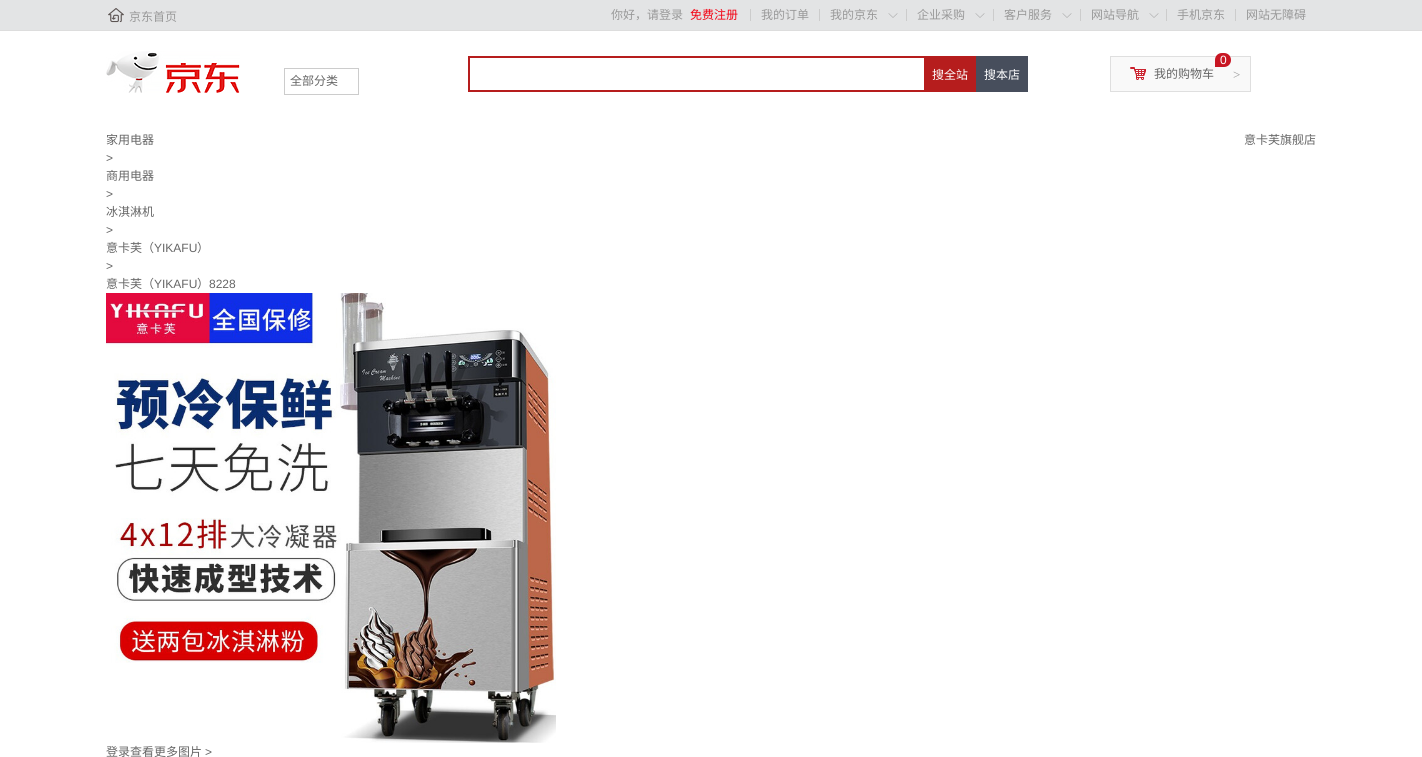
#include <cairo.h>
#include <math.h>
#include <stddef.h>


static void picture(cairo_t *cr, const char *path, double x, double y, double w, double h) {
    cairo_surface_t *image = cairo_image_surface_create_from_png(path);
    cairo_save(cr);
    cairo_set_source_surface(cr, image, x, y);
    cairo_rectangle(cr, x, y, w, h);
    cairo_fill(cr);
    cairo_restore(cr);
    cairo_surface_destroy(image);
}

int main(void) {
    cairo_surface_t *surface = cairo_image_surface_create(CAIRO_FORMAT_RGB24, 1422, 757);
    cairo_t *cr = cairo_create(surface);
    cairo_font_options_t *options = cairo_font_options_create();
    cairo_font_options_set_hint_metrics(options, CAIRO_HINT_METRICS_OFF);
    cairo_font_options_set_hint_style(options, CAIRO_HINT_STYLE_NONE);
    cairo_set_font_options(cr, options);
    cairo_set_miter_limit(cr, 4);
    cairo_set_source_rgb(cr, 1, 1, 1);
    cairo_paint(cr);
    cairo_set_source_rgb(cr, 0.89, 0.894, 0.898);
    cairo_rectangle(cr, 0, 0, 1422, 30);
    cairo_fill(cr);
    cairo_set_source_rgb(cr, 0.867, 0.867, 0.867);
    cairo_rectangle(cr, 0, 30, 1422, 1);
    cairo_fill(cr);
    picture(cr, "img1.png", 108, 8, 16, 15);
    cairo_select_font_face(cr, "Noto Sans CJK SC", CAIRO_FONT_SLANT_NORMAL, CAIRO_FONT_WEIGHT_NORMAL);
    cairo_set_font_size(cr, 12);
    cairo_set_source_rgb(cr, 0.6, 0.6, 0.6);
    cairo_move_to(cr, 129, 21);
    cairo_show_text(cr, "京东首页");
    cairo_move_to(cr, 611, 19);
    cairo_show_text(cr, "你好，请登录");
    cairo_set_source_rgb(cr, 0.953, 0.008, 0.075);
    cairo_move_to(cr, 690, 19);
    cairo_show_text(cr, "免费注册");
    cairo_set_source_rgb(cr, 0.8, 0.8, 0.8);
    cairo_rectangle(cr, 750, 9, 1, 12);
    cairo_fill(cr);
    cairo_set_source_rgb(cr, 0.6, 0.6, 0.6);
    cairo_move_to(cr, 761, 19);
    cairo_show_text(cr, "我的订单");
    cairo_set_source_rgb(cr, 0.8, 0.8, 0.8);
    cairo_rectangle(cr, 819, 9, 1, 12);
    cairo_fill(cr);
    cairo_set_source_rgb(cr, 0.6, 0.6, 0.6);
    cairo_move_to(cr, 830, 19);
    cairo_show_text(cr, "我的京东");
    picture(cr, "img2.png", 888, 13, 10, 5);
    cairo_set_source_rgb(cr, 0.8, 0.8, 0.8);
    cairo_rectangle(cr, 906, 9, 1, 12);
    cairo_fill(cr);
    cairo_set_source_rgb(cr, 0.6, 0.6, 0.6);
    cairo_move_to(cr, 917, 19);
    cairo_show_text(cr, "企业采购");
    picture(cr, "img2.png", 975, 13, 10, 5);
    cairo_set_source_rgb(cr, 0.8, 0.8, 0.8);
    cairo_rectangle(cr, 993, 9, 1, 12);
    cairo_fill(cr);
    cairo_set_source_rgb(cr, 0.6, 0.6, 0.6);
    cairo_move_to(cr, 1004, 19);
    cairo_show_text(cr, "客户服务");
    picture(cr, "img2.png", 1062, 13, 10, 5);
    cairo_set_source_rgb(cr, 0.8, 0.8, 0.8);
    cairo_rectangle(cr, 1080, 9, 1, 12);
    cairo_fill(cr);
    cairo_set_source_rgb(cr, 0.6, 0.6, 0.6);
    cairo_move_to(cr, 1091, 19);
    cairo_show_text(cr, "网站导航");
    picture(cr, "img2.png", 1149, 13, 10, 5);
    cairo_set_source_rgb(cr, 0.8, 0.8, 0.8);
    cairo_rectangle(cr, 1166, 9, 1, 12);
    cairo_fill(cr);
    cairo_set_source_rgb(cr, 0.6, 0.6, 0.6);
    cairo_move_to(cr, 1177, 19);
    cairo_show_text(cr, "手机京东");
    cairo_set_source_rgb(cr, 0.8, 0.8, 0.8);
    cairo_rectangle(cr, 1235, 9, 1, 12);
    cairo_fill(cr);
    cairo_set_source_rgb(cr, 0.6, 0.6, 0.6);
    cairo_move_to(cr, 1246, 19);
    cairo_show_text(cr, "网站无障碍");
    picture(cr, "img3.png", 106, 51, 134, 42);
    cairo_rectangle(cr, 284.5, 68.5, 74, 26);
    cairo_set_source_rgb(cr, 0.8, 0.8, 0.8);
    cairo_set_line_width(cr, 1);
    cairo_stroke(cr);
    cairo_set_source_rgb(cr, 0.4, 0.4, 0.4);
    cairo_move_to(cr, 290, 85);
    cairo_show_text(cr, "全部分类");
    cairo_set_source_rgb(cr, 0.714, 0.114, 0.114);
    cairo_rectangle(cr, 468, 56, 456, 2);
    cairo_fill(cr);
    cairo_rectangle(cr, 468, 90, 456, 2);
    cairo_fill(cr);
    cairo_rectangle(cr, 468, 56, 2, 36);
    cairo_fill(cr);
    cairo_rectangle(cr, 924, 56, 52, 36);
    cairo_fill(cr);
    cairo_set_source_rgb(cr, 1, 1, 1);
    cairo_move_to(cr, 932, 79);
    cairo_show_text(cr, "搜全站");
    cairo_set_source_rgb(cr, 0.278, 0.306, 0.361);
    cairo_rectangle(cr, 976, 56, 52, 36);
    cairo_fill(cr);
    cairo_set_source_rgb(cr, 1, 1, 1);
    cairo_move_to(cr, 984, 79);
    cairo_show_text(cr, "搜本店");
    cairo_set_source_rgb(cr, 0.976, 0.976, 0.976);
    cairo_rectangle(cr, 1110.5, 56.5, 140, 35);
    cairo_fill_preserve(cr);
    cairo_set_source_rgb(cr, 0.875, 0.875, 0.875);
    cairo_stroke(cr);
    cairo_set_source_rgb(cr, 0.784, 0.086, 0.137);
    cairo_new_path(cr);
    cairo_move_to(cr, 1222, 53);
    cairo_line_to(cr, 1224, 53);
    cairo_curve_to(cr, 1228, 53, 1231, 56, 1231, 60);
    cairo_curve_to(cr, 1231, 64, 1228, 67, 1224, 67);
    cairo_line_to(cr, 1215, 67);
    cairo_line_to(cr, 1215, 60);
    cairo_curve_to(cr, 1215, 56, 1218, 53, 1222, 53);
    cairo_close_path(cr);
    cairo_fill(cr);
    cairo_select_font_face(cr, "Liberation Sans", CAIRO_FONT_SLANT_NORMAL, CAIRO_FONT_WEIGHT_NORMAL);
    cairo_set_source_rgb(cr, 1, 1, 1);
    cairo_move_to(cr, 1220, 64);
    cairo_show_text(cr, "0");
    picture(cr, "img4.png", 1130, 67, 16, 13);
    cairo_select_font_face(cr, "Noto Sans CJK SC", CAIRO_FONT_SLANT_NORMAL, CAIRO_FONT_WEIGHT_NORMAL);
    cairo_set_source_rgb(cr, 0.4, 0.4, 0.4);
    cairo_move_to(cr, 1154, 78);
    cairo_show_text(cr, "我的购物车");
    cairo_select_font_face(cr, "Liberation Serif", CAIRO_FONT_SLANT_NORMAL, CAIRO_FONT_WEIGHT_NORMAL);
    cairo_set_font_size(cr, 13);
    cairo_set_source_rgb(cr, 0.6, 0.6, 0.6);
    cairo_move_to(cr, 1233, 79);
    cairo_show_text(cr, ">");
    cairo_select_font_face(cr, "Noto Sans CJK SC", CAIRO_FONT_SLANT_NORMAL, CAIRO_FONT_WEIGHT_NORMAL);
    cairo_set_font_size(cr, 12);
    cairo_set_source_rgb(cr, 0.4, 0.4, 0.4);
    cairo_move_to(cr, 106, 144);
    cairo_show_text(cr, "家用电器");
    cairo_select_font_face(cr, "Liberation Sans", CAIRO_FONT_SLANT_NORMAL, CAIRO_FONT_WEIGHT_NORMAL);
    cairo_move_to(cr, 106, 162);
    cairo_show_text(cr, ">");
    cairo_select_font_face(cr, "Noto Sans CJK SC", CAIRO_FONT_SLANT_NORMAL, CAIRO_FONT_WEIGHT_NORMAL);
    cairo_move_to(cr, 106, 180);
    cairo_show_text(cr, "商用电器");
    cairo_select_font_face(cr, "Liberation Sans", CAIRO_FONT_SLANT_NORMAL, CAIRO_FONT_WEIGHT_NORMAL);
    cairo_move_to(cr, 106, 198);
    cairo_show_text(cr, ">");
    cairo_select_font_face(cr, "Noto Sans CJK SC", CAIRO_FONT_SLANT_NORMAL, CAIRO_FONT_WEIGHT_NORMAL);
    cairo_move_to(cr, 106, 216);
    cairo_show_text(cr, "冰淇淋机");
    cairo_select_font_face(cr, "Liberation Sans", CAIRO_FONT_SLANT_NORMAL, CAIRO_FONT_WEIGHT_NORMAL);
    cairo_move_to(cr, 106, 234);
    cairo_show_text(cr, ">");
    cairo_select_font_face(cr, "Noto Sans CJK SC", CAIRO_FONT_SLANT_NORMAL, CAIRO_FONT_WEIGHT_NORMAL);
    cairo_move_to(cr, 106, 252);
    cairo_show_text(cr, "意卡芙（");
    cairo_select_font_face(cr, "Liberation Sans", CAIRO_FONT_SLANT_NORMAL, CAIRO_FONT_WEIGHT_NORMAL);
    cairo_move_to(cr, 154, 252);
    cairo_show_text(cr, "YIKAFU");
    cairo_select_font_face(cr, "Noto Sans CJK SC", CAIRO_FONT_SLANT_NORMAL, CAIRO_FONT_WEIGHT_NORMAL);
    cairo_move_to(cr, 197, 252);
    cairo_show_text(cr, "）");
    cairo_select_font_face(cr, "Liberation Sans", CAIRO_FONT_SLANT_NORMAL, CAIRO_FONT_WEIGHT_NORMAL);
    cairo_move_to(cr, 106, 270);
    cairo_show_text(cr, ">");
    cairo_select_font_face(cr, "Noto Sans CJK SC", CAIRO_FONT_SLANT_NORMAL, CAIRO_FONT_WEIGHT_NORMAL);
    cairo_move_to(cr, 106, 288);
    cairo_show_text(cr, "意卡芙（");
    cairo_select_font_face(cr, "Liberation Sans", CAIRO_FONT_SLANT_NORMAL, CAIRO_FONT_WEIGHT_NORMAL);
    cairo_move_to(cr, 154, 288);
    cairo_show_text(cr, "YIKAFU");
    cairo_select_font_face(cr, "Noto Sans CJK SC", CAIRO_FONT_SLANT_NORMAL, CAIRO_FONT_WEIGHT_NORMAL);
    cairo_move_to(cr, 197, 288);
    cairo_show_text(cr, "）");
    cairo_select_font_face(cr, "Liberation Sans", CAIRO_FONT_SLANT_NORMAL, CAIRO_FONT_WEIGHT_NORMAL);
    cairo_move_to(cr, 209, 288);
    cairo_show_text(cr, "8228");
    cairo_select_font_face(cr, "Noto Sans CJK SC", CAIRO_FONT_SLANT_NORMAL, CAIRO_FONT_WEIGHT_NORMAL);
    cairo_move_to(cr, 1244, 144);
    cairo_show_text(cr, "意卡芙旗舰店");
    picture(cr, "img5.png", 106, 293, 450, 450);
    cairo_move_to(cr, 106, 756);
    cairo_show_text(cr, "登录查看更多图片");
    cairo_select_font_face(cr, "Liberation Sans", CAIRO_FONT_SLANT_NORMAL, CAIRO_FONT_WEIGHT_NORMAL);
    cairo_move_to(cr, 205, 756);
    cairo_show_text(cr, ">");
    cairo_surface_write_to_png(surface, "page.png");
    cairo_font_options_destroy(options);
    cairo_destroy(cr);
    cairo_surface_destroy(surface);
    return 0;
}
